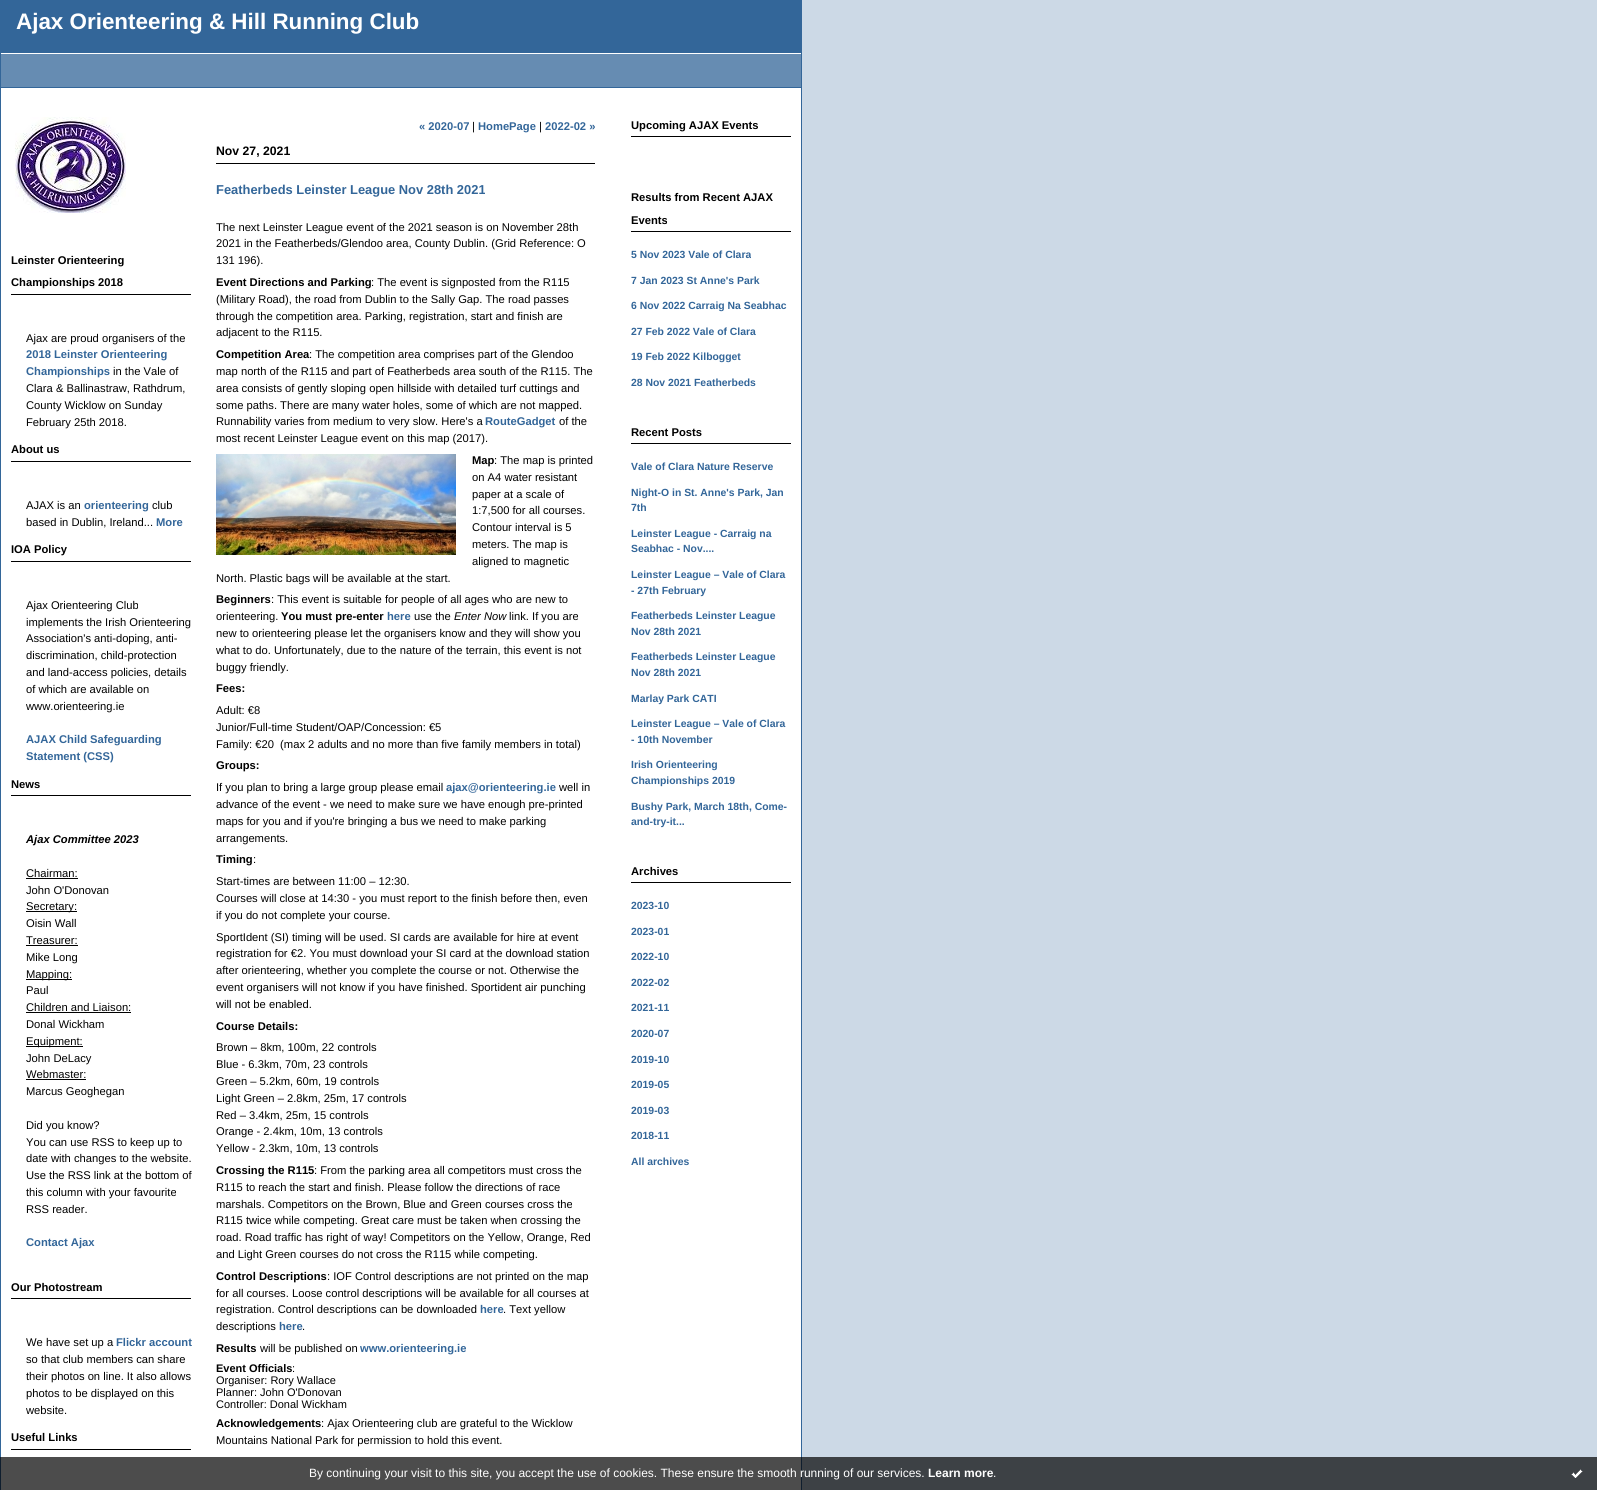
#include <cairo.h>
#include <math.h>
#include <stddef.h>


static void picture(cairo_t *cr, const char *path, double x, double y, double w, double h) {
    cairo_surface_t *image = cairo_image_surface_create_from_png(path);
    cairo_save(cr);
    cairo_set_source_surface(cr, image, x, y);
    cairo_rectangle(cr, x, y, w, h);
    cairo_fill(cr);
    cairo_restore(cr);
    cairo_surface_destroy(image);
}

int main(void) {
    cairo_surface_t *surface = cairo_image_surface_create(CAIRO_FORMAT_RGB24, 1597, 1490);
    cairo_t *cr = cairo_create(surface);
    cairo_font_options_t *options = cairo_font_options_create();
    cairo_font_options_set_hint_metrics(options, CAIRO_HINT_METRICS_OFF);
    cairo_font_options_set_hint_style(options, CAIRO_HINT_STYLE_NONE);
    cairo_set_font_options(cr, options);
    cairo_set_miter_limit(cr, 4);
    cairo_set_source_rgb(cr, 0.8, 0.851, 0.902);
    cairo_paint(cr);
    cairo_set_source_rgb(cr, 1, 1, 1);
    cairo_rectangle(cr, 1, 88, 800, 1402);
    cairo_fill(cr);
    cairo_rectangle(cr, 0.5, 0.5, 801, 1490);
    cairo_set_source_rgb(cr, 0.2, 0.4, 0.6);
    cairo_set_line_width(cr, 1);
    cairo_stroke(cr);
    cairo_rectangle(cr, 1, 1, 800, 52);
    cairo_fill(cr);
    cairo_select_font_face(cr, "Liberation Sans", CAIRO_FONT_SLANT_NORMAL, CAIRO_FONT_WEIGHT_BOLD);
    cairo_set_font_size(cr, 22.4);
    cairo_set_source_rgb(cr, 1, 1, 1);
    cairo_move_to(cr, 16, 29);
    cairo_show_text(cr, "Ajax Orienteering & Hill Running Club");
    cairo_set_source_rgb(cr, 0.4, 0.549, 0.698);
    cairo_rectangle(cr, 1, 54, 800, 33);
    cairo_fill(cr);
    cairo_set_source_rgb(cr, 1, 1, 1);
    cairo_rectangle(cr, 1, 53, 800, 1);
    cairo_fill(cr);
    cairo_set_source_rgb(cr, 0.2, 0.4, 0.6);
    cairo_rectangle(cr, 1, 87, 800, 1);
    cairo_fill(cr);
    picture(cr, "img1.png", 15, 117, 111, 96);
    cairo_set_source_rgb(cr, 0, 0, 0);
    cairo_rectangle(cr, 11, 294, 180, 1);
    cairo_fill(cr);
    cairo_set_font_size(cr, 11.2);
    cairo_move_to(cr, 11, 264);
    cairo_show_text(cr, "Leinster Orienteering");
    cairo_move_to(cr, 11, 286);
    cairo_show_text(cr, "Championships 2018");
    cairo_select_font_face(cr, "Liberation Sans", CAIRO_FONT_SLANT_NORMAL, CAIRO_FONT_WEIGHT_NORMAL);
    cairo_move_to(cr, 26, 342);
    cairo_show_text(cr, "Ajax are proud organisers of the");
    cairo_select_font_face(cr, "Liberation Sans", CAIRO_FONT_SLANT_NORMAL, CAIRO_FONT_WEIGHT_BOLD);
    cairo_set_source_rgb(cr, 0.2, 0.4, 0.6);
    cairo_move_to(cr, 26, 358);
    cairo_show_text(cr, "2018 Leinster Orienteering");
    cairo_move_to(cr, 26, 375);
    cairo_show_text(cr, "Championships");
    cairo_select_font_face(cr, "Liberation Sans", CAIRO_FONT_SLANT_NORMAL, CAIRO_FONT_WEIGHT_NORMAL);
    cairo_set_source_rgb(cr, 0, 0, 0);
    cairo_move_to(cr, 113, 375);
    cairo_show_text(cr, "in the Vale of");
    cairo_move_to(cr, 26, 392);
    cairo_show_text(cr, "Clara & Ballinastraw, Rathdrum,");
    cairo_move_to(cr, 26, 409);
    cairo_show_text(cr, "County Wicklow on Sunday");
    cairo_move_to(cr, 26, 426);
    cairo_show_text(cr, "February 25th 2018.");
    cairo_rectangle(cr, 11, 461, 180, 1);
    cairo_fill(cr);
    cairo_select_font_face(cr, "Liberation Sans", CAIRO_FONT_SLANT_NORMAL, CAIRO_FONT_WEIGHT_BOLD);
    cairo_move_to(cr, 11, 453);
    cairo_show_text(cr, "About us");
    cairo_select_font_face(cr, "Liberation Sans", CAIRO_FONT_SLANT_NORMAL, CAIRO_FONT_WEIGHT_NORMAL);
    cairo_move_to(cr, 26, 509);
    cairo_show_text(cr, "AJAX is an");
    cairo_select_font_face(cr, "Liberation Sans", CAIRO_FONT_SLANT_NORMAL, CAIRO_FONT_WEIGHT_BOLD);
    cairo_set_source_rgb(cr, 0.2, 0.4, 0.6);
    cairo_move_to(cr, 84, 509);
    cairo_show_text(cr, "orienteering");
    cairo_select_font_face(cr, "Liberation Sans", CAIRO_FONT_SLANT_NORMAL, CAIRO_FONT_WEIGHT_NORMAL);
    cairo_set_source_rgb(cr, 0, 0, 0);
    cairo_move_to(cr, 152, 509);
    cairo_show_text(cr, "club");
    cairo_move_to(cr, 26, 526);
    cairo_show_text(cr, "based in Dublin, Ireland...");
    cairo_select_font_face(cr, "Liberation Sans", CAIRO_FONT_SLANT_NORMAL, CAIRO_FONT_WEIGHT_BOLD);
    cairo_set_source_rgb(cr, 0.2, 0.4, 0.6);
    cairo_move_to(cr, 156, 526);
    cairo_show_text(cr, "More");
    cairo_set_source_rgb(cr, 0, 0, 0);
    cairo_rectangle(cr, 11, 561, 180, 1);
    cairo_fill(cr);
    cairo_move_to(cr, 11, 553);
    cairo_show_text(cr, "IOA Policy");
    cairo_select_font_face(cr, "Liberation Sans", CAIRO_FONT_SLANT_NORMAL, CAIRO_FONT_WEIGHT_NORMAL);
    cairo_move_to(cr, 26, 609);
    cairo_show_text(cr, "Ajax Orienteering Club");
    cairo_move_to(cr, 26, 626);
    cairo_show_text(cr, "implements the Irish Orienteering");
    cairo_move_to(cr, 26, 642);
    cairo_show_text(cr, "Association's anti-doping, anti-");
    cairo_move_to(cr, 26, 659);
    cairo_show_text(cr, "discrimination, child-protection");
    cairo_move_to(cr, 26, 676);
    cairo_show_text(cr, "and land-access policies, details");
    cairo_move_to(cr, 26, 693);
    cairo_show_text(cr, "of which are available on");
    cairo_move_to(cr, 26, 710);
    cairo_show_text(cr, "www.orienteering.ie");
    cairo_select_font_face(cr, "Liberation Sans", CAIRO_FONT_SLANT_NORMAL, CAIRO_FONT_WEIGHT_BOLD);
    cairo_set_source_rgb(cr, 0.2, 0.4, 0.6);
    cairo_move_to(cr, 26, 743);
    cairo_show_text(cr, "AJAX Child Safeguarding");
    cairo_move_to(cr, 26, 760);
    cairo_show_text(cr, "Statement (CSS)");
    cairo_set_source_rgb(cr, 0, 0, 0);
    cairo_rectangle(cr, 11, 795, 180, 1);
    cairo_fill(cr);
    cairo_move_to(cr, 11, 788);
    cairo_show_text(cr, "News");
    cairo_select_font_face(cr, "Liberation Sans", CAIRO_FONT_SLANT_ITALIC, CAIRO_FONT_WEIGHT_BOLD);
    cairo_move_to(cr, 26, 843);
    cairo_show_text(cr, "Ajax Committee 2023");
    cairo_select_font_face(cr, "Liberation Sans", CAIRO_FONT_SLANT_NORMAL, CAIRO_FONT_WEIGHT_NORMAL);
    cairo_move_to(cr, 26, 877);
    cairo_show_text(cr, "Chairman:");
    cairo_rectangle(cr, 26, 878, 52, 1);
    cairo_fill(cr);
    cairo_move_to(cr, 26, 894);
    cairo_show_text(cr, "John O'Donovan");
    cairo_rectangle(cr, 26, 911, 51, 1);
    cairo_fill(cr);
    cairo_move_to(cr, 26, 910);
    cairo_show_text(cr, "Secretary:");
    cairo_move_to(cr, 26, 927);
    cairo_show_text(cr, "Oisin Wall");
    cairo_move_to(cr, 26, 944);
    cairo_show_text(cr, "Treasurer:");
    cairo_rectangle(cr, 26, 945, 52, 1);
    cairo_fill(cr);
    cairo_move_to(cr, 26, 961);
    cairo_show_text(cr, "Mike Long");
    cairo_rectangle(cr, 26, 979, 46, 1);
    cairo_fill(cr);
    cairo_move_to(cr, 26, 978);
    cairo_show_text(cr, "Mapping:");
    cairo_move_to(cr, 26, 994);
    cairo_show_text(cr, "Paul");
    cairo_move_to(cr, 26, 1011);
    cairo_show_text(cr, "Children and Liaison:");
    cairo_rectangle(cr, 26, 1012, 105, 1);
    cairo_fill(cr);
    cairo_move_to(cr, 26, 1028);
    cairo_show_text(cr, "Donal Wickham");
    cairo_rectangle(cr, 26, 1046, 57, 1);
    cairo_fill(cr);
    cairo_move_to(cr, 26, 1045);
    cairo_show_text(cr, "Equipment:");
    cairo_move_to(cr, 26, 1062);
    cairo_show_text(cr, "John DeLacy");
    cairo_move_to(cr, 26, 1078);
    cairo_show_text(cr, "Webmaster:");
    cairo_rectangle(cr, 26, 1079, 60, 1);
    cairo_fill(cr);
    cairo_move_to(cr, 26, 1095);
    cairo_show_text(cr, "Marcus Geoghegan");
    cairo_move_to(cr, 26, 1129);
    cairo_show_text(cr, "Did you know?");
    cairo_move_to(cr, 26, 1146);
    cairo_show_text(cr, "You can use RSS to keep up to");
    cairo_move_to(cr, 26, 1162);
    cairo_show_text(cr, "date with changes to the website.");
    cairo_move_to(cr, 26, 1179);
    cairo_show_text(cr, "Use the RSS link at the bottom of");
    cairo_move_to(cr, 26, 1196);
    cairo_show_text(cr, "this column with your favourite");
    cairo_move_to(cr, 26, 1213);
    cairo_show_text(cr, "RSS reader.");
    cairo_select_font_face(cr, "Liberation Sans", CAIRO_FONT_SLANT_NORMAL, CAIRO_FONT_WEIGHT_BOLD);
    cairo_set_source_rgb(cr, 0.2, 0.4, 0.6);
    cairo_move_to(cr, 26, 1246);
    cairo_show_text(cr, "Contact Ajax");
    cairo_set_source_rgb(cr, 0, 0, 0);
    cairo_rectangle(cr, 11, 1298, 180, 1);
    cairo_fill(cr);
    cairo_move_to(cr, 11, 1291);
    cairo_show_text(cr, "Our Photostream");
    cairo_select_font_face(cr, "Liberation Sans", CAIRO_FONT_SLANT_NORMAL, CAIRO_FONT_WEIGHT_NORMAL);
    cairo_move_to(cr, 26, 1346);
    cairo_show_text(cr, "We have set up a");
    cairo_select_font_face(cr, "Liberation Sans", CAIRO_FONT_SLANT_NORMAL, CAIRO_FONT_WEIGHT_BOLD);
    cairo_set_source_rgb(cr, 0.2, 0.4, 0.6);
    cairo_move_to(cr, 116, 1346);
    cairo_show_text(cr, "Flickr account");
    cairo_select_font_face(cr, "Liberation Sans", CAIRO_FONT_SLANT_NORMAL, CAIRO_FONT_WEIGHT_NORMAL);
    cairo_set_source_rgb(cr, 0, 0, 0);
    cairo_move_to(cr, 26, 1363);
    cairo_show_text(cr, "so that club members can share");
    cairo_move_to(cr, 26, 1380);
    cairo_show_text(cr, "their photos on line. It also allows");
    cairo_move_to(cr, 26, 1397);
    cairo_show_text(cr, "photos to be displayed on this");
    cairo_move_to(cr, 26, 1414);
    cairo_show_text(cr, "website.");
    cairo_rectangle(cr, 11, 1449, 180, 1);
    cairo_fill(cr);
    cairo_select_font_face(cr, "Liberation Sans", CAIRO_FONT_SLANT_NORMAL, CAIRO_FONT_WEIGHT_BOLD);
    cairo_move_to(cr, 11, 1441);
    cairo_show_text(cr, "Useful Links");
    cairo_set_source_rgb(cr, 0.2, 0.4, 0.6);
    cairo_move_to(cr, 419, 130);
    cairo_show_text(cr, "« 2020-07");
    cairo_select_font_face(cr, "Liberation Sans", CAIRO_FONT_SLANT_NORMAL, CAIRO_FONT_WEIGHT_NORMAL);
    cairo_set_source_rgb(cr, 0, 0, 0);
    cairo_move_to(cr, 472, 130);
    cairo_show_text(cr, "|");
    cairo_select_font_face(cr, "Liberation Sans", CAIRO_FONT_SLANT_NORMAL, CAIRO_FONT_WEIGHT_BOLD);
    cairo_set_source_rgb(cr, 0.2, 0.4, 0.6);
    cairo_move_to(cr, 478, 130);
    cairo_show_text(cr, "HomePage");
    cairo_select_font_face(cr, "Liberation Sans", CAIRO_FONT_SLANT_NORMAL, CAIRO_FONT_WEIGHT_NORMAL);
    cairo_set_source_rgb(cr, 0, 0, 0);
    cairo_move_to(cr, 539, 130);
    cairo_show_text(cr, "|");
    cairo_select_font_face(cr, "Liberation Sans", CAIRO_FONT_SLANT_NORMAL, CAIRO_FONT_WEIGHT_BOLD);
    cairo_set_source_rgb(cr, 0.2, 0.4, 0.6);
    cairo_move_to(cr, 545, 130);
    cairo_show_text(cr, "2022-02 »");
    cairo_set_source_rgb(cr, 0, 0, 0);
    cairo_rectangle(cr, 216, 163, 379, 1);
    cairo_fill(cr);
    cairo_set_font_size(cr, 12.25);
    cairo_move_to(cr, 216, 155);
    cairo_show_text(cr, "Nov 27, 2021");
    cairo_set_font_size(cr, 12.9);
    cairo_set_source_rgb(cr, 0.2, 0.4, 0.6);
    cairo_move_to(cr, 216, 194);
    cairo_show_text(cr, "Featherbeds Leinster League Nov 28th 2021");
    cairo_select_font_face(cr, "Liberation Sans", CAIRO_FONT_SLANT_NORMAL, CAIRO_FONT_WEIGHT_NORMAL);
    cairo_set_font_size(cr, 11.2);
    cairo_set_source_rgb(cr, 0, 0, 0);
    cairo_move_to(cr, 216, 231);
    cairo_show_text(cr, "The next Leinster League event of the 2021 season is on November 28th");
    cairo_move_to(cr, 216, 247);
    cairo_show_text(cr, "2021 in the Featherbeds/Glendoo area, County Dublin. (Grid Reference: O");
    cairo_move_to(cr, 216, 264);
    cairo_show_text(cr, "131 196).");
    cairo_select_font_face(cr, "Liberation Sans", CAIRO_FONT_SLANT_NORMAL, CAIRO_FONT_WEIGHT_BOLD);
    cairo_move_to(cr, 216, 286);
    cairo_show_text(cr, "Event Directions and Parking");
    cairo_select_font_face(cr, "Liberation Sans", CAIRO_FONT_SLANT_NORMAL, CAIRO_FONT_WEIGHT_NORMAL);
    cairo_move_to(cr, 371, 286);
    cairo_show_text(cr, ": The event is signposted from the R115");
    cairo_move_to(cr, 216, 303);
    cairo_show_text(cr, "(Military Road), the road from Dublin to the Sally Gap. The road passes");
    cairo_move_to(cr, 216, 320);
    cairo_show_text(cr, "through the competition area. Parking, registration, start and finish are");
    cairo_move_to(cr, 216, 336);
    cairo_show_text(cr, "adjacent to the R115.");
    cairo_select_font_face(cr, "Liberation Sans", CAIRO_FONT_SLANT_NORMAL, CAIRO_FONT_WEIGHT_BOLD);
    cairo_move_to(cr, 216, 358);
    cairo_show_text(cr, "Competition Area");
    cairo_select_font_face(cr, "Liberation Sans", CAIRO_FONT_SLANT_NORMAL, CAIRO_FONT_WEIGHT_NORMAL);
    cairo_move_to(cr, 309, 358);
    cairo_show_text(cr, ": The competition area comprises part of the Glendoo");
    cairo_move_to(cr, 216, 375);
    cairo_show_text(cr, "map north of the R115 and part of Featherbeds area south of the R115. The");
    cairo_move_to(cr, 216, 392);
    cairo_show_text(cr, "area consists of gently sloping open hillside with detailed turf cuttings and");
    cairo_move_to(cr, 216, 409);
    cairo_show_text(cr, "some paths. There are many water holes, some of which are not mapped.");
    cairo_move_to(cr, 216, 425);
    cairo_show_text(cr, "Runnability varies from medium to very slow. Here's a");
    cairo_select_font_face(cr, "Liberation Sans", CAIRO_FONT_SLANT_NORMAL, CAIRO_FONT_WEIGHT_BOLD);
    cairo_set_source_rgb(cr, 0.2, 0.4, 0.6);
    cairo_move_to(cr, 485, 425);
    cairo_show_text(cr, "RouteGadget");
    cairo_select_font_face(cr, "Liberation Sans", CAIRO_FONT_SLANT_NORMAL, CAIRO_FONT_WEIGHT_NORMAL);
    cairo_set_source_rgb(cr, 0, 0, 0);
    cairo_move_to(cr, 559, 425);
    cairo_show_text(cr, "of the");
    cairo_move_to(cr, 216, 442);
    cairo_show_text(cr, "most recent Leinster League event on this map (2017).");
    picture(cr, "img2.png", 216, 454, 240, 101);
    cairo_select_font_face(cr, "Liberation Sans", CAIRO_FONT_SLANT_NORMAL, CAIRO_FONT_WEIGHT_BOLD);
    cairo_move_to(cr, 472, 464);
    cairo_show_text(cr, "Map");
    cairo_select_font_face(cr, "Liberation Sans", CAIRO_FONT_SLANT_NORMAL, CAIRO_FONT_WEIGHT_NORMAL);
    cairo_move_to(cr, 494, 464);
    cairo_show_text(cr, ": The map is printed");
    cairo_move_to(cr, 472, 481);
    cairo_show_text(cr, "on A4 water resistant");
    cairo_move_to(cr, 472, 498);
    cairo_show_text(cr, "paper at a scale of");
    cairo_move_to(cr, 472, 514);
    cairo_show_text(cr, "1:7,500 for all courses.");
    cairo_move_to(cr, 472, 531);
    cairo_show_text(cr, "Contour interval is 5");
    cairo_move_to(cr, 472, 548);
    cairo_show_text(cr, "meters. The map is");
    cairo_move_to(cr, 472, 565);
    cairo_show_text(cr, "aligned to magnetic");
    cairo_move_to(cr, 216, 582);
    cairo_show_text(cr, "North. Plastic bags will be available at the start.");
    cairo_select_font_face(cr, "Liberation Sans", CAIRO_FONT_SLANT_NORMAL, CAIRO_FONT_WEIGHT_BOLD);
    cairo_move_to(cr, 216, 603);
    cairo_show_text(cr, "Beginners");
    cairo_select_font_face(cr, "Liberation Sans", CAIRO_FONT_SLANT_NORMAL, CAIRO_FONT_WEIGHT_NORMAL);
    cairo_move_to(cr, 271, 603);
    cairo_show_text(cr, ": This event is suitable for people of all ages who are new to");
    cairo_move_to(cr, 216, 620);
    cairo_show_text(cr, "orienteering.");
    cairo_select_font_face(cr, "Liberation Sans", CAIRO_FONT_SLANT_NORMAL, CAIRO_FONT_WEIGHT_BOLD);
    cairo_move_to(cr, 281, 620);
    cairo_show_text(cr, "You must pre-enter");
    cairo_set_source_rgb(cr, 0.2, 0.4, 0.6);
    cairo_move_to(cr, 387, 620);
    cairo_show_text(cr, "here");
    cairo_select_font_face(cr, "Liberation Sans", CAIRO_FONT_SLANT_NORMAL, CAIRO_FONT_WEIGHT_NORMAL);
    cairo_set_source_rgb(cr, 0, 0, 0);
    cairo_move_to(cr, 414, 620);
    cairo_show_text(cr, "use the");
    cairo_select_font_face(cr, "Liberation Sans", CAIRO_FONT_SLANT_ITALIC, CAIRO_FONT_WEIGHT_NORMAL);
    cairo_move_to(cr, 454, 620);
    cairo_show_text(cr, "Enter Now");
    cairo_select_font_face(cr, "Liberation Sans", CAIRO_FONT_SLANT_NORMAL, CAIRO_FONT_WEIGHT_NORMAL);
    cairo_move_to(cr, 509, 620);
    cairo_show_text(cr, "link. If you are");
    cairo_move_to(cr, 216, 637);
    cairo_show_text(cr, "new to orienteering please let the organisers know and they will show you");
    cairo_move_to(cr, 216, 654);
    cairo_show_text(cr, "what to do. Unfortunately, due to the nature of the terrain, this event is not");
    cairo_move_to(cr, 216, 671);
    cairo_show_text(cr, "buggy friendly.");
    cairo_select_font_face(cr, "Liberation Sans", CAIRO_FONT_SLANT_NORMAL, CAIRO_FONT_WEIGHT_BOLD);
    cairo_move_to(cr, 216, 692);
    cairo_show_text(cr, "Fees:");
    cairo_select_font_face(cr, "Liberation Sans", CAIRO_FONT_SLANT_NORMAL, CAIRO_FONT_WEIGHT_NORMAL);
    cairo_move_to(cr, 216, 714);
    cairo_show_text(cr, "Adult: €8");
    cairo_move_to(cr, 216, 731);
    cairo_show_text(cr, "Junior/Full-time Student/OAP/Concession: €5");
    cairo_move_to(cr, 216, 748);
    cairo_show_text(cr, "Family: €20  (max 2 adults and no more than five family members in total)");
    cairo_select_font_face(cr, "Liberation Sans", CAIRO_FONT_SLANT_NORMAL, CAIRO_FONT_WEIGHT_BOLD);
    cairo_move_to(cr, 216, 769);
    cairo_show_text(cr, "Groups:");
    cairo_select_font_face(cr, "Liberation Sans", CAIRO_FONT_SLANT_NORMAL, CAIRO_FONT_WEIGHT_NORMAL);
    cairo_move_to(cr, 216, 791);
    cairo_show_text(cr, "If you plan to bring a large group please email");
    cairo_select_font_face(cr, "Liberation Sans", CAIRO_FONT_SLANT_NORMAL, CAIRO_FONT_WEIGHT_BOLD);
    cairo_set_source_rgb(cr, 0.2, 0.4, 0.6);
    cairo_move_to(cr, 446, 791);
    cairo_show_text(cr, "ajax@orienteering.ie");
    cairo_select_font_face(cr, "Liberation Sans", CAIRO_FONT_SLANT_NORMAL, CAIRO_FONT_WEIGHT_NORMAL);
    cairo_set_source_rgb(cr, 0, 0, 0);
    cairo_move_to(cr, 559, 791);
    cairo_show_text(cr, "well in");
    cairo_move_to(cr, 216, 808);
    cairo_show_text(cr, "advance of the event - we need to make sure we have enough pre-printed");
    cairo_move_to(cr, 216, 825);
    cairo_show_text(cr, "maps for you and if you're bringing a bus we need to make parking");
    cairo_move_to(cr, 216, 842);
    cairo_show_text(cr, "arrangements.");
    cairo_select_font_face(cr, "Liberation Sans", CAIRO_FONT_SLANT_NORMAL, CAIRO_FONT_WEIGHT_BOLD);
    cairo_move_to(cr, 216, 863);
    cairo_show_text(cr, "Timing");
    cairo_select_font_face(cr, "Liberation Sans", CAIRO_FONT_SLANT_NORMAL, CAIRO_FONT_WEIGHT_NORMAL);
    cairo_move_to(cr, 253, 863);
    cairo_show_text(cr, ":");
    cairo_move_to(cr, 216, 885);
    cairo_show_text(cr, "Start-times are between 11:00 – 12:30.");
    cairo_move_to(cr, 216, 902);
    cairo_show_text(cr, "Courses will close at 14:30 - you must report to the finish before then, even");
    cairo_move_to(cr, 216, 919);
    cairo_show_text(cr, "if you do not complete your course.");
    cairo_move_to(cr, 216, 941);
    cairo_show_text(cr, "SportIdent (SI) timing will be used. SI cards are available for hire at event");
    cairo_move_to(cr, 216, 957);
    cairo_show_text(cr, "registration for €2. You must download your SI card at the download station");
    cairo_move_to(cr, 216, 974);
    cairo_show_text(cr, "after orienteering, whether you complete the course or not. Otherwise the");
    cairo_move_to(cr, 216, 991);
    cairo_show_text(cr, "event organisers will not know if you have finished. Sportident air punching");
    cairo_move_to(cr, 216, 1008);
    cairo_show_text(cr, "will not be enabled.");
    cairo_select_font_face(cr, "Liberation Sans", CAIRO_FONT_SLANT_NORMAL, CAIRO_FONT_WEIGHT_BOLD);
    cairo_move_to(cr, 216, 1030);
    cairo_show_text(cr, "Course Details:");
    cairo_select_font_face(cr, "Liberation Sans", CAIRO_FONT_SLANT_NORMAL, CAIRO_FONT_WEIGHT_NORMAL);
    cairo_move_to(cr, 216, 1051);
    cairo_show_text(cr, "Brown – 8km, 100m, 22 controls");
    cairo_move_to(cr, 216, 1068);
    cairo_show_text(cr, "Blue - 6.3km, 70m, 23 controls");
    cairo_move_to(cr, 216, 1085);
    cairo_show_text(cr, "Green – 5.2km, 60m, 19 controls");
    cairo_move_to(cr, 216, 1102);
    cairo_show_text(cr, "Light Green – 2.8km, 25m, 17 controls");
    cairo_move_to(cr, 216, 1119);
    cairo_show_text(cr, "Red – 3.4km, 25m, 15 controls");
    cairo_move_to(cr, 216, 1135);
    cairo_show_text(cr, "Orange - 2.4km, 10m, 13 controls");
    cairo_move_to(cr, 216, 1152);
    cairo_show_text(cr, "Yellow - 2.3km, 10m, 13 controls");
    cairo_select_font_face(cr, "Liberation Sans", CAIRO_FONT_SLANT_NORMAL, CAIRO_FONT_WEIGHT_BOLD);
    cairo_move_to(cr, 216, 1174);
    cairo_show_text(cr, "Crossing the R115");
    cairo_select_font_face(cr, "Liberation Sans", CAIRO_FONT_SLANT_NORMAL, CAIRO_FONT_WEIGHT_NORMAL);
    cairo_move_to(cr, 314, 1174);
    cairo_show_text(cr, ": From the parking area all competitors must cross the");
    cairo_move_to(cr, 216, 1191);
    cairo_show_text(cr, "R115 to reach the start and finish. Please follow the directions of race");
    cairo_move_to(cr, 216, 1208);
    cairo_show_text(cr, "marshals. Competitors on the Brown, Blue and Green courses cross the");
    cairo_move_to(cr, 216, 1224);
    cairo_show_text(cr, "R115 twice while competing. Great care must be taken when crossing the");
    cairo_move_to(cr, 216, 1241);
    cairo_show_text(cr, "road. Road traffic has right of way! Competitors on the Yellow, Orange, Red");
    cairo_move_to(cr, 216, 1258);
    cairo_show_text(cr, "and Light Green courses do not cross the R115 while competing.");
    cairo_select_font_face(cr, "Liberation Sans", CAIRO_FONT_SLANT_NORMAL, CAIRO_FONT_WEIGHT_BOLD);
    cairo_move_to(cr, 216, 1280);
    cairo_show_text(cr, "Control Descriptions");
    cairo_select_font_face(cr, "Liberation Sans", CAIRO_FONT_SLANT_NORMAL, CAIRO_FONT_WEIGHT_NORMAL);
    cairo_move_to(cr, 327, 1280);
    cairo_show_text(cr, ": IOF Control descriptions are not printed on the map");
    cairo_move_to(cr, 216, 1297);
    cairo_show_text(cr, "for all courses. Loose control descriptions will be available for all courses at");
    cairo_move_to(cr, 216, 1313);
    cairo_show_text(cr, "registration. Control descriptions can be downloaded");
    cairo_select_font_face(cr, "Liberation Sans", CAIRO_FONT_SLANT_NORMAL, CAIRO_FONT_WEIGHT_BOLD);
    cairo_set_source_rgb(cr, 0.2, 0.4, 0.6);
    cairo_move_to(cr, 480, 1313);
    cairo_show_text(cr, "here");
    cairo_select_font_face(cr, "Liberation Sans", CAIRO_FONT_SLANT_NORMAL, CAIRO_FONT_WEIGHT_NORMAL);
    cairo_set_source_rgb(cr, 0, 0, 0);
    cairo_move_to(cr, 503, 1313);
    cairo_show_text(cr, ". Text yellow");
    cairo_move_to(cr, 216, 1330);
    cairo_show_text(cr, "descriptions");
    cairo_select_font_face(cr, "Liberation Sans", CAIRO_FONT_SLANT_NORMAL, CAIRO_FONT_WEIGHT_BOLD);
    cairo_set_source_rgb(cr, 0.2, 0.4, 0.6);
    cairo_move_to(cr, 279, 1330);
    cairo_show_text(cr, "here");
    cairo_select_font_face(cr, "Liberation Sans", CAIRO_FONT_SLANT_NORMAL, CAIRO_FONT_WEIGHT_NORMAL);
    cairo_set_source_rgb(cr, 0, 0, 0);
    cairo_move_to(cr, 302, 1330);
    cairo_show_text(cr, ".");
    cairo_select_font_face(cr, "Liberation Sans", CAIRO_FONT_SLANT_NORMAL, CAIRO_FONT_WEIGHT_BOLD);
    cairo_move_to(cr, 216, 1352);
    cairo_show_text(cr, "Results");
    cairo_select_font_face(cr, "Liberation Sans", CAIRO_FONT_SLANT_NORMAL, CAIRO_FONT_WEIGHT_NORMAL);
    cairo_move_to(cr, 260, 1352);
    cairo_show_text(cr, "will be published on");
    cairo_select_font_face(cr, "Liberation Sans", CAIRO_FONT_SLANT_NORMAL, CAIRO_FONT_WEIGHT_BOLD);
    cairo_set_source_rgb(cr, 0.2, 0.4, 0.6);
    cairo_move_to(cr, 360, 1352);
    cairo_show_text(cr, "www.orienteering.ie");
    cairo_set_font_size(cr, 11);
    cairo_set_source_rgb(cr, 0, 0, 0);
    cairo_move_to(cr, 216, 1372);
    cairo_show_text(cr, "Event Officials");
    cairo_select_font_face(cr, "Liberation Sans", CAIRO_FONT_SLANT_NORMAL, CAIRO_FONT_WEIGHT_NORMAL);
    cairo_move_to(cr, 292, 1372);
    cairo_show_text(cr, ":");
    cairo_move_to(cr, 216, 1384);
    cairo_show_text(cr, "Organiser: Rory Wallace");
    cairo_move_to(cr, 216, 1396);
    cairo_show_text(cr, "Planner: John O'Donovan");
    cairo_move_to(cr, 216, 1408);
    cairo_show_text(cr, "Controller: Donal Wickham");
    cairo_select_font_face(cr, "Liberation Sans", CAIRO_FONT_SLANT_NORMAL, CAIRO_FONT_WEIGHT_BOLD);
    cairo_set_font_size(cr, 11.2);
    cairo_move_to(cr, 216, 1427);
    cairo_show_text(cr, "Acknowledgements");
    cairo_select_font_face(cr, "Liberation Sans", CAIRO_FONT_SLANT_NORMAL, CAIRO_FONT_WEIGHT_NORMAL);
    cairo_move_to(cr, 321, 1427);
    cairo_show_text(cr, ": Ajax Orienteering club are grateful to the Wicklow");
    cairo_move_to(cr, 216, 1444);
    cairo_show_text(cr, "Mountains National Park for permission to hold this event.");
    cairo_rectangle(cr, 631, 136, 160, 1);
    cairo_fill(cr);
    cairo_select_font_face(cr, "Liberation Sans", CAIRO_FONT_SLANT_NORMAL, CAIRO_FONT_WEIGHT_BOLD);
    cairo_move_to(cr, 631, 129);
    cairo_show_text(cr, "Upcoming AJAX Events");
    cairo_rectangle(cr, 631, 231, 160, 1);
    cairo_fill(cr);
    cairo_move_to(cr, 631, 201);
    cairo_show_text(cr, "Results from Recent AJAX");
    cairo_move_to(cr, 631, 224);
    cairo_show_text(cr, "Events");
    cairo_set_font_size(cr, 10.4);
    cairo_set_source_rgb(cr, 0.2, 0.4, 0.6);
    cairo_move_to(cr, 631, 258);
    cairo_show_text(cr, "5 Nov 2023 Vale of Clara");
    cairo_move_to(cr, 631, 284);
    cairo_show_text(cr, "7 Jan 2023 St Anne's Park");
    cairo_move_to(cr, 631, 309);
    cairo_show_text(cr, "6 Nov 2022 Carraig Na Seabhac");
    cairo_move_to(cr, 631, 335);
    cairo_show_text(cr, "27 Feb 2022 Vale of Clara");
    cairo_move_to(cr, 631, 360);
    cairo_show_text(cr, "19 Feb 2022 Kilbogget");
    cairo_move_to(cr, 631, 386);
    cairo_show_text(cr, "28 Nov 2021 Featherbeds");
    cairo_set_source_rgb(cr, 0, 0, 0);
    cairo_rectangle(cr, 631, 443, 160, 1);
    cairo_fill(cr);
    cairo_set_font_size(cr, 11.2);
    cairo_move_to(cr, 631, 436);
    cairo_show_text(cr, "Recent Posts");
    cairo_set_font_size(cr, 10.4);
    cairo_set_source_rgb(cr, 0.2, 0.4, 0.6);
    cairo_move_to(cr, 631, 470);
    cairo_show_text(cr, "Vale of Clara Nature Reserve");
    cairo_move_to(cr, 631, 496);
    cairo_show_text(cr, "Night-O in St. Anne's Park, Jan");
    cairo_move_to(cr, 631, 511);
    cairo_show_text(cr, "7th");
    cairo_move_to(cr, 631, 537);
    cairo_show_text(cr, "Leinster League - Carraig na");
    cairo_move_to(cr, 631, 552);
    cairo_show_text(cr, "Seabhac - Nov....");
    cairo_move_to(cr, 631, 578);
    cairo_show_text(cr, "Leinster League – Vale of Clara");
    cairo_move_to(cr, 631, 594);
    cairo_show_text(cr, "- 27th February");
    cairo_move_to(cr, 631, 619);
    cairo_show_text(cr, "Featherbeds Leinster League");
    cairo_move_to(cr, 631, 635);
    cairo_show_text(cr, "Nov 28th 2021");
    cairo_move_to(cr, 631, 660);
    cairo_show_text(cr, "Featherbeds Leinster League");
    cairo_move_to(cr, 631, 676);
    cairo_show_text(cr, "Nov 28th 2021");
    cairo_move_to(cr, 631, 702);
    cairo_show_text(cr, "Marlay Park CATI");
    cairo_move_to(cr, 631, 727);
    cairo_show_text(cr, "Leinster League – Vale of Clara");
    cairo_move_to(cr, 631, 743);
    cairo_show_text(cr, "- 10th November");
    cairo_move_to(cr, 631, 768);
    cairo_show_text(cr, "Irish Orienteering");
    cairo_move_to(cr, 631, 784);
    cairo_show_text(cr, "Championships 2019");
    cairo_move_to(cr, 631, 810);
    cairo_show_text(cr, "Bushy Park, March 18th, Come-");
    cairo_move_to(cr, 631, 825);
    cairo_show_text(cr, "and-try-it...");
    cairo_set_source_rgb(cr, 0, 0, 0);
    cairo_rectangle(cr, 631, 882, 160, 1);
    cairo_fill(cr);
    cairo_set_font_size(cr, 11.2);
    cairo_move_to(cr, 631, 875);
    cairo_show_text(cr, "Archives");
    cairo_set_font_size(cr, 10.4);
    cairo_set_source_rgb(cr, 0.2, 0.4, 0.6);
    cairo_move_to(cr, 631, 909);
    cairo_show_text(cr, "2023-10");
    cairo_move_to(cr, 631, 935);
    cairo_show_text(cr, "2023-01");
    cairo_move_to(cr, 631, 960);
    cairo_show_text(cr, "2022-10");
    cairo_move_to(cr, 631, 986);
    cairo_show_text(cr, "2022-02");
    cairo_move_to(cr, 631, 1011);
    cairo_show_text(cr, "2021-11");
    cairo_move_to(cr, 631, 1037);
    cairo_show_text(cr, "2020-07");
    cairo_move_to(cr, 631, 1063);
    cairo_show_text(cr, "2019-10");
    cairo_move_to(cr, 631, 1088);
    cairo_show_text(cr, "2019-05");
    cairo_move_to(cr, 631, 1114);
    cairo_show_text(cr, "2019-03");
    cairo_move_to(cr, 631, 1139);
    cairo_show_text(cr, "2018-11");
    cairo_move_to(cr, 631, 1165);
    cairo_show_text(cr, "All archives");
    cairo_set_source_rgba(cr, 0, 0, 0, 0.7);
    cairo_rectangle(cr, 0, 1457, 1597, 33);
    cairo_fill(cr);
    cairo_select_font_face(cr, "Liberation Sans", CAIRO_FONT_SLANT_NORMAL, CAIRO_FONT_WEIGHT_NORMAL);
    cairo_set_font_size(cr, 12);
    cairo_set_source_rgb(cr, 1, 1, 1);
    cairo_move_to(cr, 309, 1477);
    cairo_show_text(cr, "By continuing your visit to this site, you accept the use of cookies. These ensure the smooth running of our services.");
    cairo_select_font_face(cr, "Liberation Sans", CAIRO_FONT_SLANT_NORMAL, CAIRO_FONT_WEIGHT_BOLD);
    cairo_move_to(cr, 928, 1477);
    cairo_show_text(cr, "Learn more");
    cairo_select_font_face(cr, "Liberation Sans", CAIRO_FONT_SLANT_NORMAL, CAIRO_FONT_WEIGHT_NORMAL);
    cairo_move_to(cr, 993, 1477);
    cairo_show_text(cr, ".");
    picture(cr, "img3.png", 1571, 1469, 12, 9);
    cairo_surface_write_to_png(surface, "page.png");
    cairo_font_options_destroy(options);
    cairo_destroy(cr);
    cairo_surface_destroy(surface);
    return 0;
}
